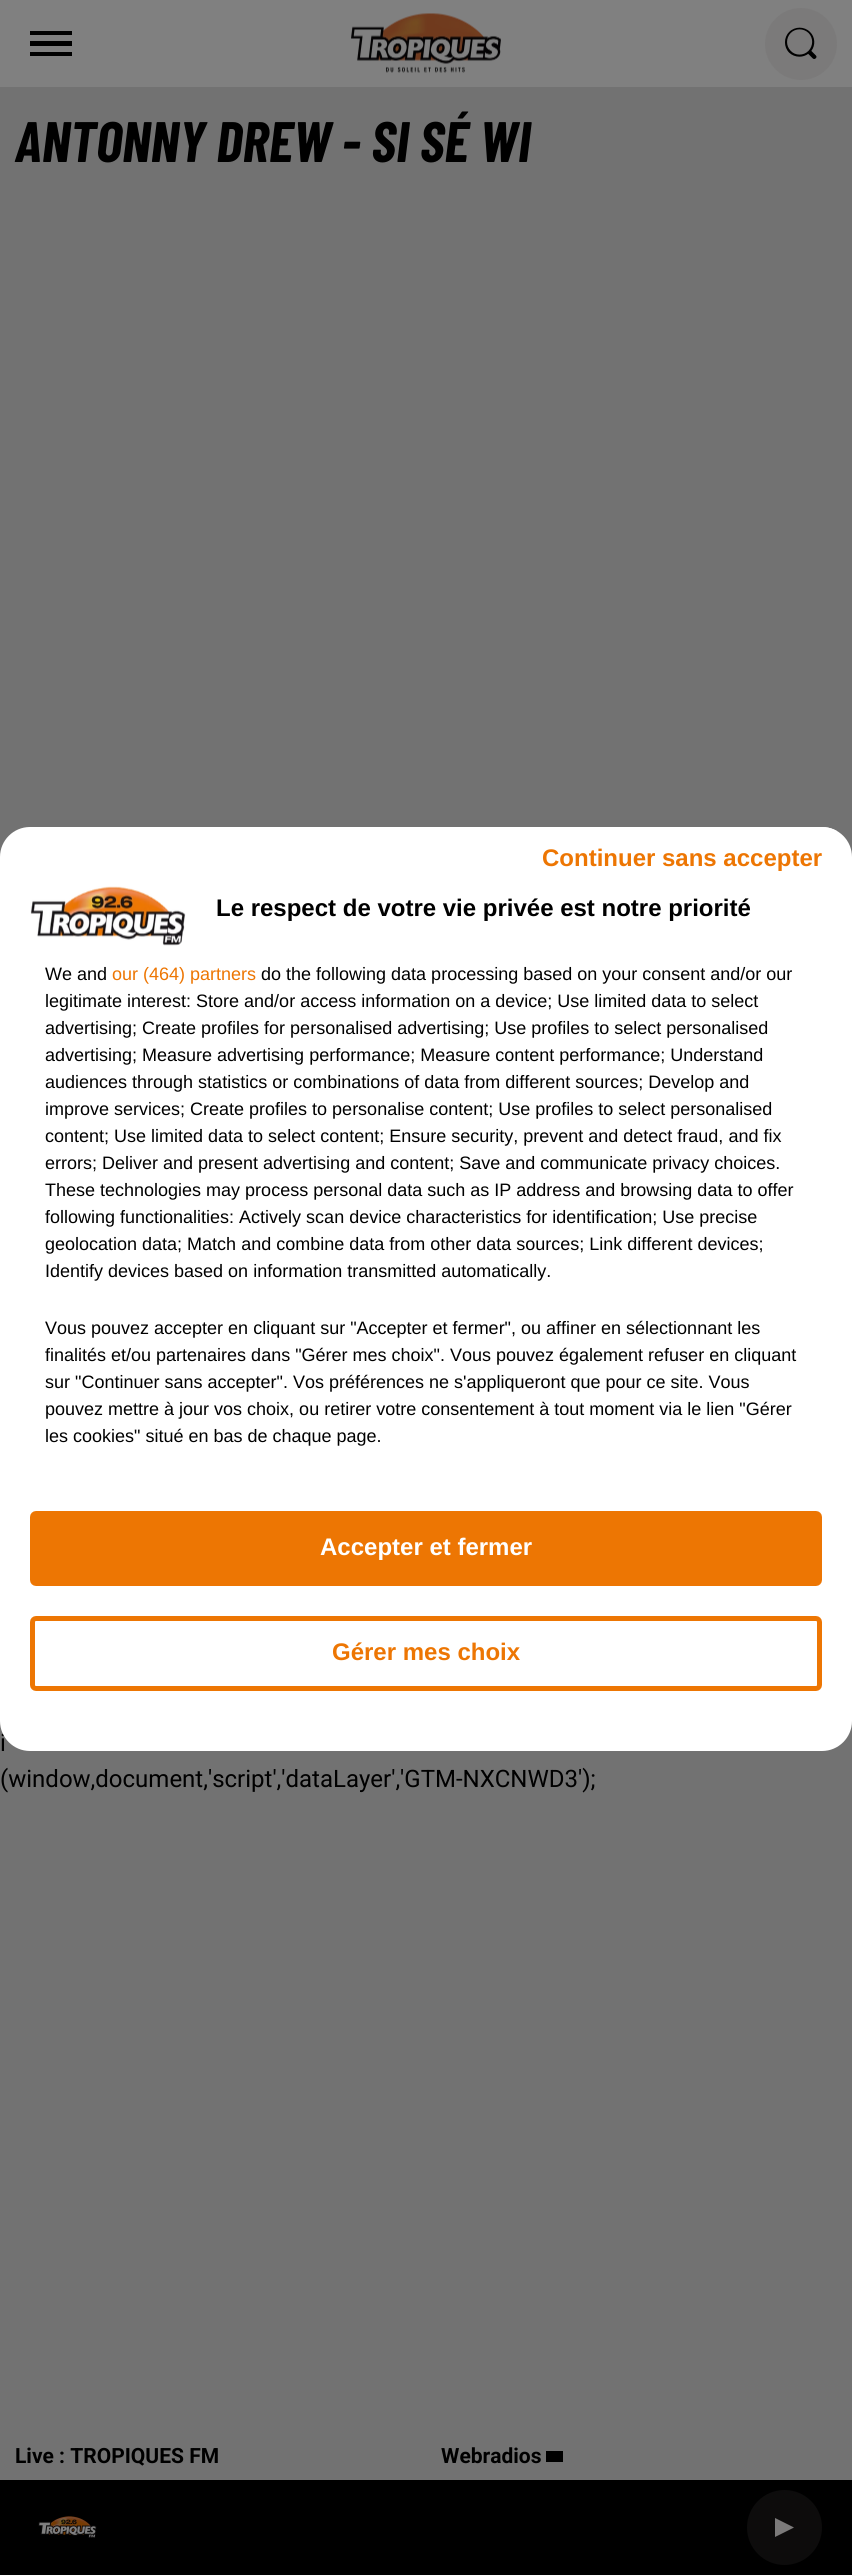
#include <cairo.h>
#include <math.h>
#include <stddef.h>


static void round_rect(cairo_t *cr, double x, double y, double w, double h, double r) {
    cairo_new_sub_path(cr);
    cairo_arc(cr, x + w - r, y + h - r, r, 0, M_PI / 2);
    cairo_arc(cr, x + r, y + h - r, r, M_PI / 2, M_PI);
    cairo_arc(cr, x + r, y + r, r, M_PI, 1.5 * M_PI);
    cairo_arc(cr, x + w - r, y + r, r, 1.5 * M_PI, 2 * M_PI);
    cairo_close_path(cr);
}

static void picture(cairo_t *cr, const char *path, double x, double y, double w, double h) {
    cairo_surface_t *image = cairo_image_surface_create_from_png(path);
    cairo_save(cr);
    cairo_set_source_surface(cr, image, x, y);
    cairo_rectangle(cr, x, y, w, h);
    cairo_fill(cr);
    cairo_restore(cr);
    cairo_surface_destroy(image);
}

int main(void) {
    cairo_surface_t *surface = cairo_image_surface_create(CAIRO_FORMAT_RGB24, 852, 2575);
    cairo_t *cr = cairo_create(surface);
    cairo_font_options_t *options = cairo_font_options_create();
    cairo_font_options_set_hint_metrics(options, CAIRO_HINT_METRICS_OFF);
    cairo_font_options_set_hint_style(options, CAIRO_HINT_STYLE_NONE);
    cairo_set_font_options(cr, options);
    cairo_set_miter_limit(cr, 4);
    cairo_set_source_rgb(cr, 0.447, 0.447, 0.447);
    cairo_paint(cr);
    cairo_select_font_face(cr, "Barlow Condensed", CAIRO_FONT_SLANT_ITALIC, CAIRO_FONT_WEIGHT_BOLD);
    cairo_set_font_size(cr, 57);
    cairo_set_source_rgb(cr, 0, 0, 0);
    cairo_move_to(cr, 15, 162);
    cairo_show_text(cr, "ANTONNY DREW - SI SÉ WI");
    cairo_set_source_rgb(cr, 0.502, 0.502, 0.502);
    cairo_rectangle(cr, 0, 0, 852, 87);
    cairo_fill(cr);
    cairo_set_source_rgb(cr, 0, 0, 0);
    cairo_new_path(cr);
    cairo_move_to(cr, 30, 56);
    cairo_line_to(cr, 30, 52);
    cairo_line_to(cr, 72, 52);
    cairo_line_to(cr, 72, 56);
    cairo_close_path(cr);
    cairo_move_to(cr, 30, 46);
    cairo_line_to(cr, 30, 41);
    cairo_line_to(cr, 72, 41);
    cairo_line_to(cr, 72, 46);
    cairo_close_path(cr);
    cairo_move_to(cr, 30, 35);
    cairo_line_to(cr, 30, 31);
    cairo_line_to(cr, 72, 31);
    cairo_line_to(cr, 72, 35);
    cairo_close_path(cr);
    cairo_fill(cr);
    picture(cr, "img1.png", 351, 13, 150, 60);
    cairo_set_source_rgb(cr, 0.482, 0.478, 0.478);
    cairo_arc(cr, 801, 44, 36, 0, 2 * M_PI);
    cairo_fill(cr);
    picture(cr, "img2.png", 785, 27, 32, 32);
    cairo_select_font_face(cr, "Roboto", CAIRO_FONT_SLANT_NORMAL, CAIRO_FONT_WEIGHT_BOLD);
    cairo_set_font_size(cr, 21);
    cairo_set_source_rgb(cr, 0, 0, 0);
    cairo_move_to(cr, 15, 2463);
    cairo_show_text(cr, "Live : TROPIQUES FM");
    cairo_move_to(cr, 441, 2463);
    cairo_show_text(cr, "Webradios");
    cairo_rectangle(cr, 546, 2451, 17, 11);
    cairo_fill(cr);
    cairo_rectangle(cr, 0, 2480, 852, 95);
    cairo_fill(cr);
    picture(cr, "img3.png", 38, 2516, 59, 22);
    cairo_set_source_rgb(cr, 0.051, 0.047, 0.047);
    cairo_arc(cr, 784.5, 2527.5, 37.5, 0, 2 * M_PI);
    cairo_fill(cr);
    cairo_set_source_rgb(cr, 0.482, 0.478, 0.478);
    cairo_new_path(cr);
    cairo_move_to(cr, 794, 2527.5);
    cairo_line_to(cr, 775, 2537);
    cairo_line_to(cr, 775, 2518);
    cairo_close_path(cr);
    cairo_fill(cr);
    cairo_select_font_face(cr, "Roboto", CAIRO_FONT_SLANT_NORMAL, CAIRO_FONT_WEIGHT_NORMAL);
    cairo_set_font_size(cr, 24);
    cairo_set_source_rgb(cr, 0, 0, 0);
    cairo_move_to(cr, 0, 1751);
    cairo_show_text(cr, "i");
    cairo_set_source_rgb(cr, 1, 1, 1);
    round_rect(cr, 0, 827, 852, 924, 30);
    cairo_fill(cr);
    cairo_save(cr);
    round_rect(cr, 0, 827, 852, 924, 30);
    cairo_clip(cr);
    round_rect(cr, 527, 827, 310, 66, 6);
    cairo_fill(cr);
    cairo_restore(cr);
    cairo_select_font_face(cr, "Liberation Sans", CAIRO_FONT_SLANT_NORMAL, CAIRO_FONT_WEIGHT_BOLD);
    cairo_set_source_rgb(cr, 0.929, 0.463, 0.012);
    cairo_move_to(cr, 542, 866);
    cairo_show_text(cr, "Continuer sans accepter");
    round_rect(cr, 32.5, 1513.5, 787, 70, 3.5);
    cairo_fill_preserve(cr);
    cairo_set_line_width(cr, 5);
    cairo_stroke(cr);
    cairo_set_source_rgb(cr, 1, 1, 1);
    cairo_move_to(cr, 320, 1555);
    cairo_show_text(cr, "Accepter et fermer");
    round_rect(cr, 32.5, 1618.5, 787, 70, 3.5);
    cairo_set_source_rgb(cr, 0.929, 0.463, 0.012);
    cairo_stroke(cr);
    cairo_move_to(cr, 332, 1660);
    cairo_show_text(cr, "Gérer mes choix");
    picture(cr, "img4.png", 30, 886, 156, 60);
    cairo_set_source_rgb(cr, 0, 0, 0);
    cairo_move_to(cr, 216, 916);
    cairo_show_text(cr, "Le respect de votre vie privée est notre priorité");
    cairo_select_font_face(cr, "Liberation Sans", CAIRO_FONT_SLANT_NORMAL, CAIRO_FONT_WEIGHT_NORMAL);
    cairo_set_font_size(cr, 18);
    cairo_move_to(cr, 45, 980);
    cairo_show_text(cr, "We and");
    cairo_set_source_rgb(cr, 0.929, 0.463, 0.012);
    cairo_move_to(cr, 112, 980);
    cairo_show_text(cr, "our (464) partners");
    cairo_set_source_rgb(cr, 0, 0, 0);
    cairo_move_to(cr, 261, 980);
    cairo_show_text(cr, "do the following data processing based on your consent and/or our");
    cairo_move_to(cr, 45, 1007);
    cairo_show_text(cr, "legitimate interest: Store and/or access information on a device; Use limited data to select");
    cairo_move_to(cr, 45, 1034);
    cairo_show_text(cr, "advertising; Create profiles for personalised advertising; Use profiles to select personalised");
    cairo_move_to(cr, 45, 1061);
    cairo_show_text(cr, "advertising; Measure advertising performance; Measure content performance; Understand");
    cairo_move_to(cr, 45, 1088);
    cairo_show_text(cr, "audiences through statistics or combinations of data from different sources; Develop and");
    cairo_move_to(cr, 45, 1115);
    cairo_show_text(cr, "improve services; Create profiles to personalise content; Use profiles to select personalised");
    cairo_move_to(cr, 45, 1142);
    cairo_show_text(cr, "content; Use limited data to select content; Ensure security, prevent and detect fraud, and fix");
    cairo_move_to(cr, 45, 1169);
    cairo_show_text(cr, "errors; Deliver and present advertising and content; Save and communicate privacy choices.");
    cairo_move_to(cr, 45, 1196);
    cairo_show_text(cr, "These technologies may process personal data such as IP address and browsing data to offer");
    cairo_move_to(cr, 45, 1223);
    cairo_show_text(cr, "following functionalities: Actively scan device characteristics for identification; Use precise");
    cairo_move_to(cr, 45, 1250);
    cairo_show_text(cr, "geolocation data; Match and combine data from other data sources; Link different devices;");
    cairo_move_to(cr, 45, 1277);
    cairo_show_text(cr, "Identify devices based on information transmitted automatically.");
    cairo_move_to(cr, 45, 1334);
    cairo_show_text(cr, "Vous pouvez accepter en cliquant sur \"Accepter et fermer\", ou affiner en sélectionnant les");
    cairo_move_to(cr, 45, 1361);
    cairo_show_text(cr, "finalités et/ou partenaires dans \"Gérer mes choix\". Vous pouvez également refuser en cliquant");
    cairo_move_to(cr, 45, 1388);
    cairo_show_text(cr, "sur \"Continuer sans accepter\". Vos préférences ne s'appliqueront que pour ce site. Vous");
    cairo_move_to(cr, 45, 1415);
    cairo_show_text(cr, "pouvez mettre à jour vos choix, ou retirer votre consentement à tout moment via le lien \"Gérer");
    cairo_move_to(cr, 45, 1442);
    cairo_show_text(cr, "les cookies\" situé en bas de chaque page.");
    cairo_select_font_face(cr, "Roboto", CAIRO_FONT_SLANT_NORMAL, CAIRO_FONT_WEIGHT_NORMAL);
    cairo_set_font_size(cr, 24);
    cairo_move_to(cr, 0, 1787);
    cairo_show_text(cr, "(window,document,'script','dataLayer','GTM-NXCNWD3');");
    cairo_surface_write_to_png(surface, "page.png");
    cairo_font_options_destroy(options);
    cairo_destroy(cr);
    cairo_surface_destroy(surface);
    return 0;
}
